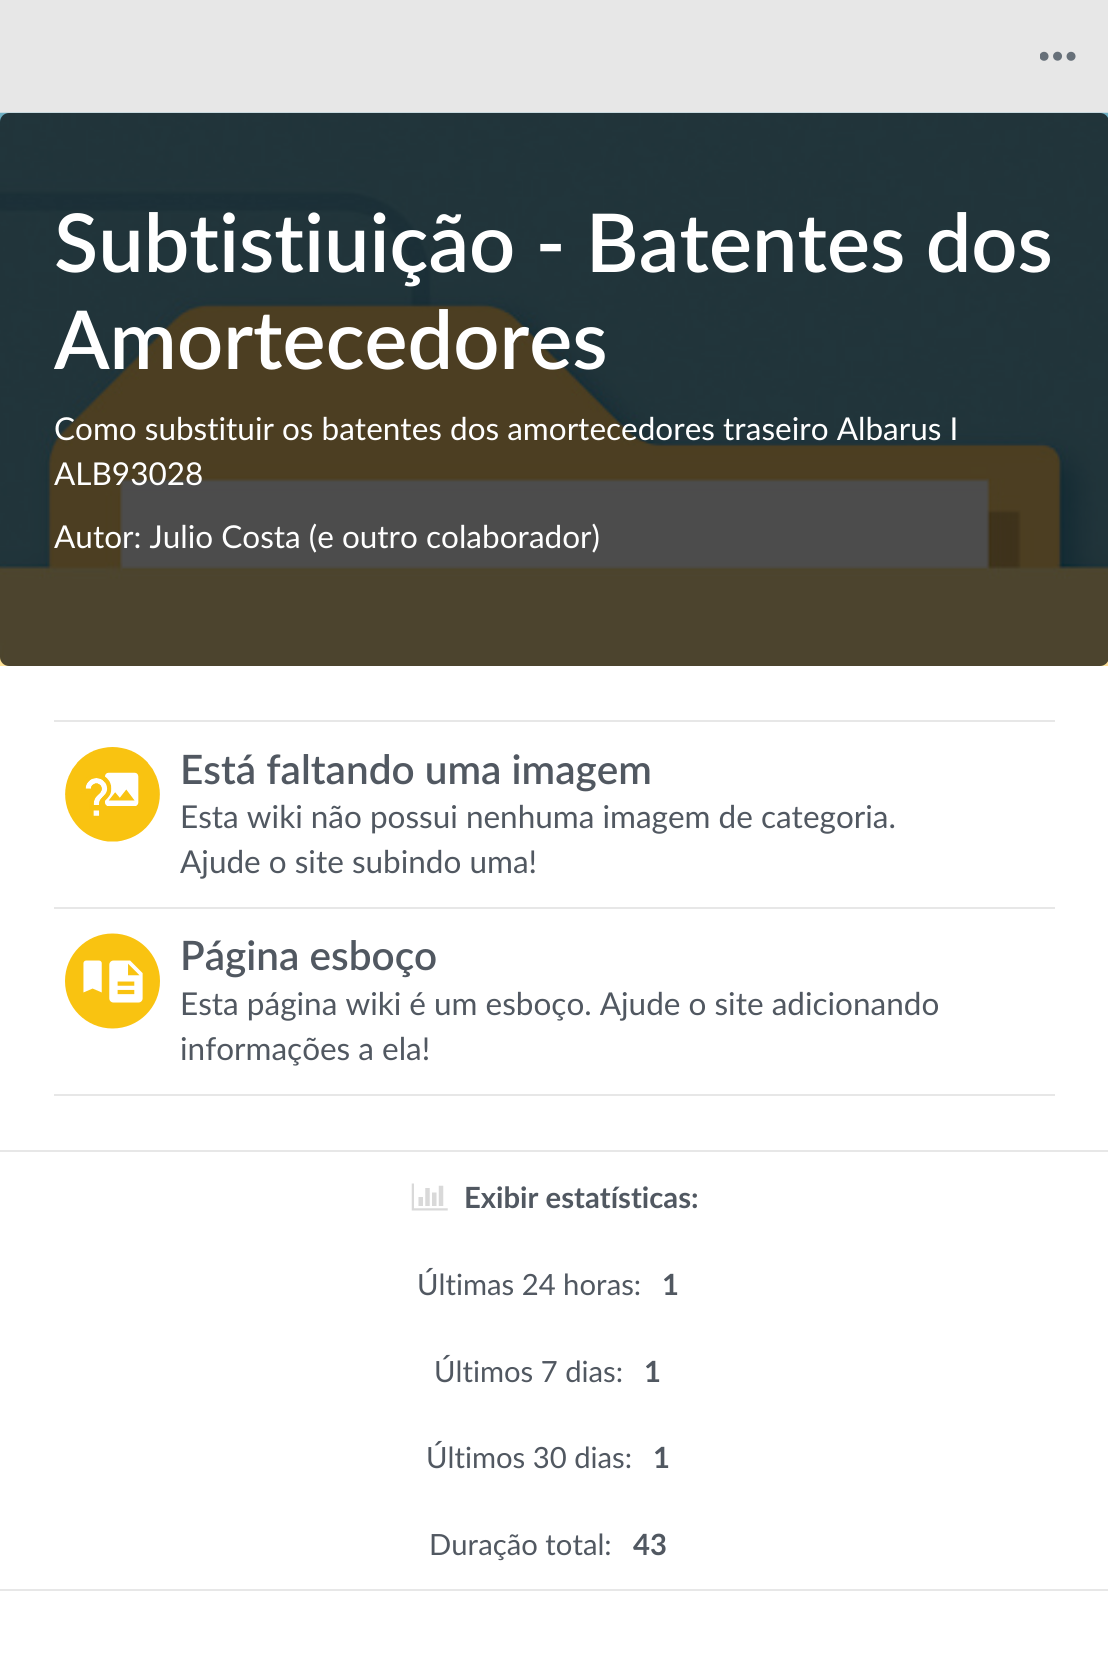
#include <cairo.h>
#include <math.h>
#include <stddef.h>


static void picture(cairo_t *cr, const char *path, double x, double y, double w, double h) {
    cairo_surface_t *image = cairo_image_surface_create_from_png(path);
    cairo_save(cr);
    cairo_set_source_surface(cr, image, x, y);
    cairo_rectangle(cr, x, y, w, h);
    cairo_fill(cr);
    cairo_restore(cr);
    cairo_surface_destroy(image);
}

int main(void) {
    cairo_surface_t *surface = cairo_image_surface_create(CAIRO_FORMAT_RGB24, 1108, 1659);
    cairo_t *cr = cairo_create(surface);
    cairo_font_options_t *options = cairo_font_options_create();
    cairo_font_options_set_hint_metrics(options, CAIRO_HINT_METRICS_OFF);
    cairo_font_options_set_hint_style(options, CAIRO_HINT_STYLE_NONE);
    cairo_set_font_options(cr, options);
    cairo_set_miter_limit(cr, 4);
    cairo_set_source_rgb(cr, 1, 1, 1);
    cairo_paint(cr);
    cairo_set_source_rgb(cr, 0.906, 0.906, 0.906);
    cairo_rectangle(cr, 0, 0, 1108, 113);
    cairo_fill(cr);
    picture(cr, "img1.png", 1040, 51, 36, 10);
    picture(cr, "img2.png", 0, 112, 1108, 554);
    cairo_select_font_face(cr, "Lato SemiBold", CAIRO_FONT_SLANT_NORMAL, CAIRO_FONT_WEIGHT_NORMAL);
    cairo_set_font_size(cr, 81);
    cairo_set_source_rgb(cr, 1, 1, 1);
    cairo_move_to(cr, 54, 272);
    cairo_show_text(cr, "Subtistiuição - Batentes dos");
    cairo_move_to(cr, 54, 369);
    cairo_show_text(cr, "Amortecedores");
    cairo_select_font_face(cr, "Lato", CAIRO_FONT_SLANT_NORMAL, CAIRO_FONT_WEIGHT_NORMAL);
    cairo_set_font_size(cr, 31.5);
    cairo_move_to(cr, 54, 440);
    cairo_show_text(cr, "Como substituir os batentes dos amortecedores traseiro Albarus I");
    cairo_move_to(cr, 54, 485);
    cairo_show_text(cr, "ALB93028");
    cairo_move_to(cr, 54, 548);
    cairo_show_text(cr, "Autor: Julio Costa (e outro colaborador)");
    cairo_set_source_rgb(cr, 0.906, 0.906, 0.906);
    cairo_rectangle(cr, 54, 720, 1001, 2);
    cairo_fill(cr);
    cairo_rectangle(cr, 54, 907, 1001, 2);
    cairo_fill(cr);
    picture(cr, "img3.png", 65, 747, 95, 95);
    cairo_select_font_face(cr, "Lato SemiBold", CAIRO_FONT_SLANT_NORMAL, CAIRO_FONT_WEIGHT_NORMAL);
    cairo_set_font_size(cr, 40.5);
    cairo_set_source_rgb(cr, 0.318, 0.345, 0.38);
    cairo_move_to(cr, 180, 784);
    cairo_show_text(cr, "Está faltando uma imagem");
    cairo_select_font_face(cr, "Lato", CAIRO_FONT_SLANT_NORMAL, CAIRO_FONT_WEIGHT_NORMAL);
    cairo_set_font_size(cr, 31.5);
    cairo_move_to(cr, 180, 828);
    cairo_show_text(cr, "Esta wiki não possui nenhuma imagem de categoria.");
    cairo_move_to(cr, 180, 873);
    cairo_show_text(cr, "Ajude o site subindo uma!");
    cairo_set_source_rgb(cr, 0.906, 0.906, 0.906);
    cairo_rectangle(cr, 54, 1094, 1001, 2);
    cairo_fill(cr);
    picture(cr, "img4.png", 65, 933, 95, 96);
    cairo_select_font_face(cr, "Lato SemiBold", CAIRO_FONT_SLANT_NORMAL, CAIRO_FONT_WEIGHT_NORMAL);
    cairo_set_font_size(cr, 40.5);
    cairo_set_source_rgb(cr, 0.318, 0.345, 0.38);
    cairo_move_to(cr, 180, 970);
    cairo_show_text(cr, "Página esboço");
    cairo_select_font_face(cr, "Lato", CAIRO_FONT_SLANT_NORMAL, CAIRO_FONT_WEIGHT_NORMAL);
    cairo_set_font_size(cr, 31.5);
    cairo_move_to(cr, 180, 1015);
    cairo_show_text(cr, "Esta página wiki é um esboço. Ajude o site adicionando");
    cairo_move_to(cr, 180, 1060);
    cairo_show_text(cr, "informações a ela!");
    cairo_set_source_rgb(cr, 0.906, 0.906, 0.906);
    cairo_rectangle(cr, 0, 1150, 1108, 2);
    cairo_fill(cr);
    cairo_rectangle(cr, 0, 1589, 1108, 2);
    cairo_fill(cr);
    picture(cr, "img5.png", 411, 1183, 37, 28);
    cairo_select_font_face(cr, "Lato", CAIRO_FONT_SLANT_NORMAL, CAIRO_FONT_WEIGHT_BOLD);
    cairo_set_font_size(cr, 29.25);
    cairo_set_source_rgb(cr, 0.318, 0.345, 0.38);
    cairo_move_to(cr, 464, 1208);
    cairo_show_text(cr, "Exibir estatísticas:");
    cairo_select_font_face(cr, "Lato", CAIRO_FONT_SLANT_NORMAL, CAIRO_FONT_WEIGHT_NORMAL);
    cairo_move_to(cr, 417, 1295);
    cairo_show_text(cr, "Últimas 24 horas:");
    cairo_select_font_face(cr, "Lato", CAIRO_FONT_SLANT_NORMAL, CAIRO_FONT_WEIGHT_BOLD);
    cairo_move_to(cr, 662, 1295);
    cairo_show_text(cr, "1");
    cairo_select_font_face(cr, "Lato", CAIRO_FONT_SLANT_NORMAL, CAIRO_FONT_WEIGHT_NORMAL);
    cairo_move_to(cr, 434, 1382);
    cairo_show_text(cr, "Últimos 7 dias:");
    cairo_select_font_face(cr, "Lato", CAIRO_FONT_SLANT_NORMAL, CAIRO_FONT_WEIGHT_BOLD);
    cairo_move_to(cr, 644, 1382);
    cairo_show_text(cr, "1");
    cairo_select_font_face(cr, "Lato", CAIRO_FONT_SLANT_NORMAL, CAIRO_FONT_WEIGHT_NORMAL);
    cairo_move_to(cr, 426, 1468);
    cairo_show_text(cr, "Últimos 30 dias:");
    cairo_select_font_face(cr, "Lato", CAIRO_FONT_SLANT_NORMAL, CAIRO_FONT_WEIGHT_BOLD);
    cairo_move_to(cr, 653, 1468);
    cairo_show_text(cr, "1");
    cairo_select_font_face(cr, "Lato", CAIRO_FONT_SLANT_NORMAL, CAIRO_FONT_WEIGHT_NORMAL);
    cairo_move_to(cr, 429, 1555);
    cairo_show_text(cr, "Duração total:");
    cairo_select_font_face(cr, "Lato", CAIRO_FONT_SLANT_NORMAL, CAIRO_FONT_WEIGHT_BOLD);
    cairo_move_to(cr, 633, 1555);
    cairo_show_text(cr, "43");
    cairo_surface_write_to_png(surface, "page.png");
    cairo_font_options_destroy(options);
    cairo_destroy(cr);
    cairo_surface_destroy(surface);
    return 0;
}
